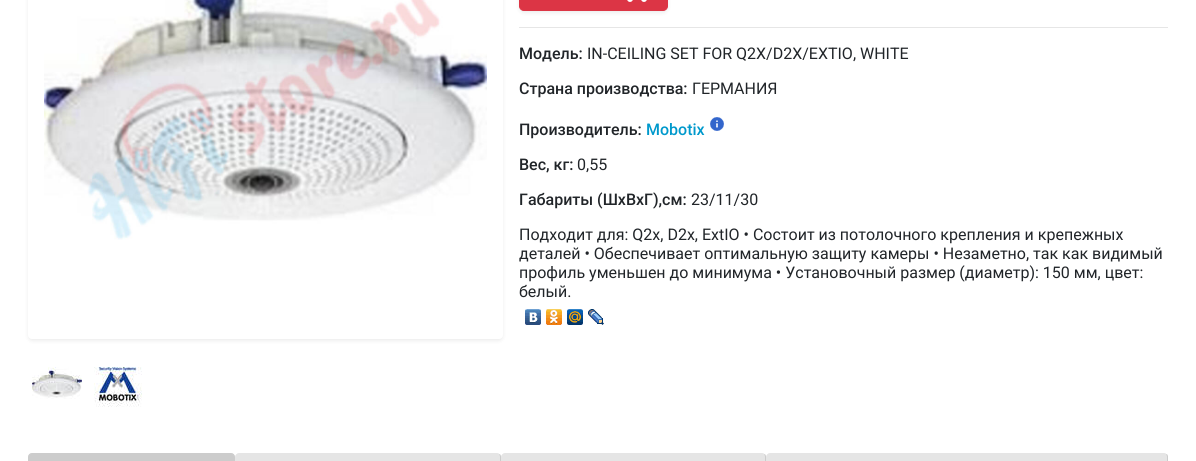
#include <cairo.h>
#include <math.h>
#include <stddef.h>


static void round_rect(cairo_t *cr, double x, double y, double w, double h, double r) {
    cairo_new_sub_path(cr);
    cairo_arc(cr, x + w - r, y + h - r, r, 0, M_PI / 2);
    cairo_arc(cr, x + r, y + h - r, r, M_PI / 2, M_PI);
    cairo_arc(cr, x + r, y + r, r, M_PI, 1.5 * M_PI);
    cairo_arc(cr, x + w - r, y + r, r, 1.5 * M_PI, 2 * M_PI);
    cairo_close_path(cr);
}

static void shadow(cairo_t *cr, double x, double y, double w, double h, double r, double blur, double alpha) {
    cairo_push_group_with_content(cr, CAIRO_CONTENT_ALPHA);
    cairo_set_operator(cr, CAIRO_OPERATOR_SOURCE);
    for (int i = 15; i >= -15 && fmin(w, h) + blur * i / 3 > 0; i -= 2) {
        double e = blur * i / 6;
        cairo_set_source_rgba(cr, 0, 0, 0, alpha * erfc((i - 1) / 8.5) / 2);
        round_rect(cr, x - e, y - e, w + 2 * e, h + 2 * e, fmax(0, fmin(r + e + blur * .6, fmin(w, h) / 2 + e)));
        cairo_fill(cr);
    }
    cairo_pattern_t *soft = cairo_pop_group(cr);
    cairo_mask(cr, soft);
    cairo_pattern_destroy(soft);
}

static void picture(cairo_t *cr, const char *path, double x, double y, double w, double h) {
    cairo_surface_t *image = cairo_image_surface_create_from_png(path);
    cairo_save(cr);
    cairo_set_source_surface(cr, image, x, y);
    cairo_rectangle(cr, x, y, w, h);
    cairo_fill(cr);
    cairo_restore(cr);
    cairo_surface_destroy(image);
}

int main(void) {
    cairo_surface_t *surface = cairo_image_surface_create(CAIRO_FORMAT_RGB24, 1196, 461);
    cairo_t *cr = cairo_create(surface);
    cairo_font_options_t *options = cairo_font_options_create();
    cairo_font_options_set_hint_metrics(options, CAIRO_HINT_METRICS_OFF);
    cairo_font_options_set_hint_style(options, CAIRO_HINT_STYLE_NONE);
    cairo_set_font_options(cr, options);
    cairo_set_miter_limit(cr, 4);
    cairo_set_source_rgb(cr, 1, 1, 1);
    cairo_paint(cr);
    cairo_set_source_rgb(cr, 0, 0, 0);
    shadow(cr, 28, -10, 475, 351, 4, 2, 0.07);
    cairo_set_source_rgb(cr, 1, 1, 1);
    round_rect(cr, 28, -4, 475, 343, 4);
    cairo_fill(cr);
    picture(cr, "img1.png", 44, 0, 443, 240);
    picture(cr, "img2.png", 32, 367, 50, 32);
    picture(cr, "img3.png", 94, 367, 48, 40);
    cairo_set_source_rgb(cr, 0, 0, 0);
    shadow(cr, 519, -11, 149, 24, 5, 2, 0.07);
    cairo_set_source_rgb(cr, 0.863, 0.208, 0.271);
    round_rect(cr, 519.5, -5.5, 148, 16, 4.5);
    cairo_fill_preserve(cr);
    cairo_set_line_width(cr, 1);
    cairo_stroke(cr);
    picture(cr, "img4.png", 627, 0, 20, 2);
    cairo_set_source_rgb(cr, 0.902, 0.902, 0.902);
    cairo_rectangle(cr, 519, 27, 649, 1);
    cairo_fill(cr);
    cairo_select_font_face(cr, "Roboto Medium", CAIRO_FONT_SLANT_NORMAL, CAIRO_FONT_WEIGHT_NORMAL);
    cairo_set_font_size(cr, 16);
    cairo_set_source_rgb(cr, 0.129, 0.145, 0.161);
    cairo_move_to(cr, 519, 59);
    cairo_show_text(cr, "Модель:");
    cairo_select_font_face(cr, "Roboto", CAIRO_FONT_SLANT_NORMAL, CAIRO_FONT_WEIGHT_NORMAL);
    cairo_move_to(cr, 587, 59);
    cairo_show_text(cr, "IN-CEILING SET FOR Q2X/D2X/EXTIO, WHITE");
    cairo_select_font_face(cr, "Roboto Medium", CAIRO_FONT_SLANT_NORMAL, CAIRO_FONT_WEIGHT_NORMAL);
    cairo_move_to(cr, 519, 94);
    cairo_show_text(cr, "Страна производства:");
    cairo_select_font_face(cr, "Roboto", CAIRO_FONT_SLANT_NORMAL, CAIRO_FONT_WEIGHT_NORMAL);
    cairo_move_to(cr, 692, 94);
    cairo_show_text(cr, "ГЕРМАНИЯ");
    cairo_select_font_face(cr, "Roboto Medium", CAIRO_FONT_SLANT_NORMAL, CAIRO_FONT_WEIGHT_NORMAL);
    cairo_move_to(cr, 519, 135);
    cairo_show_text(cr, "Производитель:");
    cairo_set_source_rgb(cr, 0, 0.6, 0.8);
    cairo_move_to(cr, 646, 135);
    cairo_show_text(cr, "Mobotix");
    picture(cr, "img5.png", 710, 117, 14, 14);
    cairo_set_source_rgb(cr, 0.129, 0.145, 0.161);
    cairo_move_to(cr, 519, 170);
    cairo_show_text(cr, "Вес, кг:");
    cairo_select_font_face(cr, "Roboto", CAIRO_FONT_SLANT_NORMAL, CAIRO_FONT_WEIGHT_NORMAL);
    cairo_move_to(cr, 577, 170);
    cairo_show_text(cr, "0,55");
    cairo_select_font_face(cr, "Roboto Medium", CAIRO_FONT_SLANT_NORMAL, CAIRO_FONT_WEIGHT_NORMAL);
    cairo_move_to(cr, 519, 205);
    cairo_show_text(cr, "Габариты (ШхВхГ),см:");
    cairo_select_font_face(cr, "Roboto", CAIRO_FONT_SLANT_NORMAL, CAIRO_FONT_WEIGHT_NORMAL);
    cairo_move_to(cr, 691, 205);
    cairo_show_text(cr, "23/11/30");
    cairo_move_to(cr, 519, 240);
    cairo_show_text(cr, "Подходит для: Q2x, D2x, ExtIO • Состоит из потолочного крепления и крепежных");
    cairo_move_to(cr, 519, 259);
    cairo_show_text(cr, "деталей • Обеспечивает оптимальную защиту камеры • Незаметно, так как видимый");
    cairo_move_to(cr, 519, 278);
    cairo_show_text(cr, "профиль уменьшен до минимума • Установочный размер (диаметр): 150 мм, цвет:");
    cairo_move_to(cr, 519, 297);
    cairo_show_text(cr, "белый.");
    picture(cr, "img6.png", 525, 309, 16, 16);
    picture(cr, "img7.png", 546, 309, 16, 16);
    picture(cr, "img8.png", 567, 309, 16, 16);
    picture(cr, "img9.png", 588, 309, 16, 16);
    cairo_set_source_rgb(cr, 0.8, 0.8, 0.8);
    cairo_new_path(cr);
    cairo_move_to(cr, 32, 453.5);
    cairo_line_to(cr, 231, 453.5);
    cairo_curve_to(cr, 233, 453.5, 234.5, 455, 234.5, 457);
    cairo_line_to(cr, 234.5, 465.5);
    cairo_line_to(cr, 28.5, 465.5);
    cairo_line_to(cr, 28.5, 457);
    cairo_curve_to(cr, 28.5, 455, 30, 453.5, 32, 453.5);
    cairo_close_path(cr);
    cairo_fill_preserve(cr);
    cairo_stroke(cr);
    cairo_set_source_rgb(cr, 0.898, 0.898, 0.898);
    cairo_new_path(cr);
    cairo_move_to(cr, 239, 453);
    cairo_line_to(cr, 497, 453);
    cairo_curve_to(cr, 499, 453, 501, 455, 501, 457);
    cairo_line_to(cr, 501, 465);
    cairo_line_to(cr, 235, 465);
    cairo_line_to(cr, 235, 457);
    cairo_curve_to(cr, 235, 455, 237, 453, 239, 453);
    cairo_close_path(cr);
    cairo_fill(cr);
    cairo_set_source_rgb(cr, 0.8, 0.8, 0.8);
    cairo_new_path(cr);
    cairo_move_to(cr, 501, 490);
    cairo_line_to(cr, 501, 457);
    cairo_curve_to(cr, 501, 456, 500.5, 455, 500, 454);
    cairo_line_to(cr, 499, 455);
    cairo_curve_to(cr, 500, 455, 500, 456, 500, 457);
    cairo_line_to(cr, 500, 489);
    cairo_close_path(cr);
    cairo_fill(cr);
    cairo_set_source_rgb(cr, 0.898, 0.898, 0.898);
    cairo_new_path(cr);
    cairo_move_to(cr, 505, 453);
    cairo_line_to(cr, 762, 453);
    cairo_curve_to(cr, 764, 453, 766, 455, 766, 457);
    cairo_line_to(cr, 766, 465);
    cairo_line_to(cr, 501, 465);
    cairo_line_to(cr, 501, 457);
    cairo_curve_to(cr, 501, 455, 503, 453, 505, 453);
    cairo_close_path(cr);
    cairo_fill(cr);
    cairo_set_source_rgb(cr, 0.8, 0.8, 0.8);
    cairo_new_path(cr);
    cairo_move_to(cr, 766, 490);
    cairo_line_to(cr, 766, 457);
    cairo_curve_to(cr, 766, 456, 765.5, 455, 765, 454);
    cairo_line_to(cr, 764, 455);
    cairo_curve_to(cr, 765, 455, 765, 456, 765, 457);
    cairo_line_to(cr, 765, 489);
    cairo_close_path(cr);
    cairo_fill(cr);
    cairo_set_source_rgb(cr, 0.898, 0.898, 0.898);
    cairo_new_path(cr);
    cairo_move_to(cr, 770, 453);
    cairo_line_to(cr, 1164, 453);
    cairo_curve_to(cr, 1166, 453, 1168, 455, 1168, 457);
    cairo_line_to(cr, 1168, 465);
    cairo_line_to(cr, 766, 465);
    cairo_line_to(cr, 766, 457);
    cairo_curve_to(cr, 766, 455, 768, 453, 770, 453);
    cairo_close_path(cr);
    cairo_fill(cr);
    cairo_set_source_rgb(cr, 0.8, 0.8, 0.8);
    cairo_new_path(cr);
    cairo_move_to(cr, 1168, 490);
    cairo_line_to(cr, 1168, 457);
    cairo_curve_to(cr, 1168, 456, 1167.5, 455, 1167, 454);
    cairo_line_to(cr, 1166, 455);
    cairo_curve_to(cr, 1167, 455, 1167, 456, 1167, 457);
    cairo_line_to(cr, 1167, 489);
    cairo_close_path(cr);
    cairo_fill(cr);
    cairo_surface_write_to_png(surface, "page.png");
    cairo_font_options_destroy(options);
    cairo_destroy(cr);
    cairo_surface_destroy(surface);
    return 0;
}
